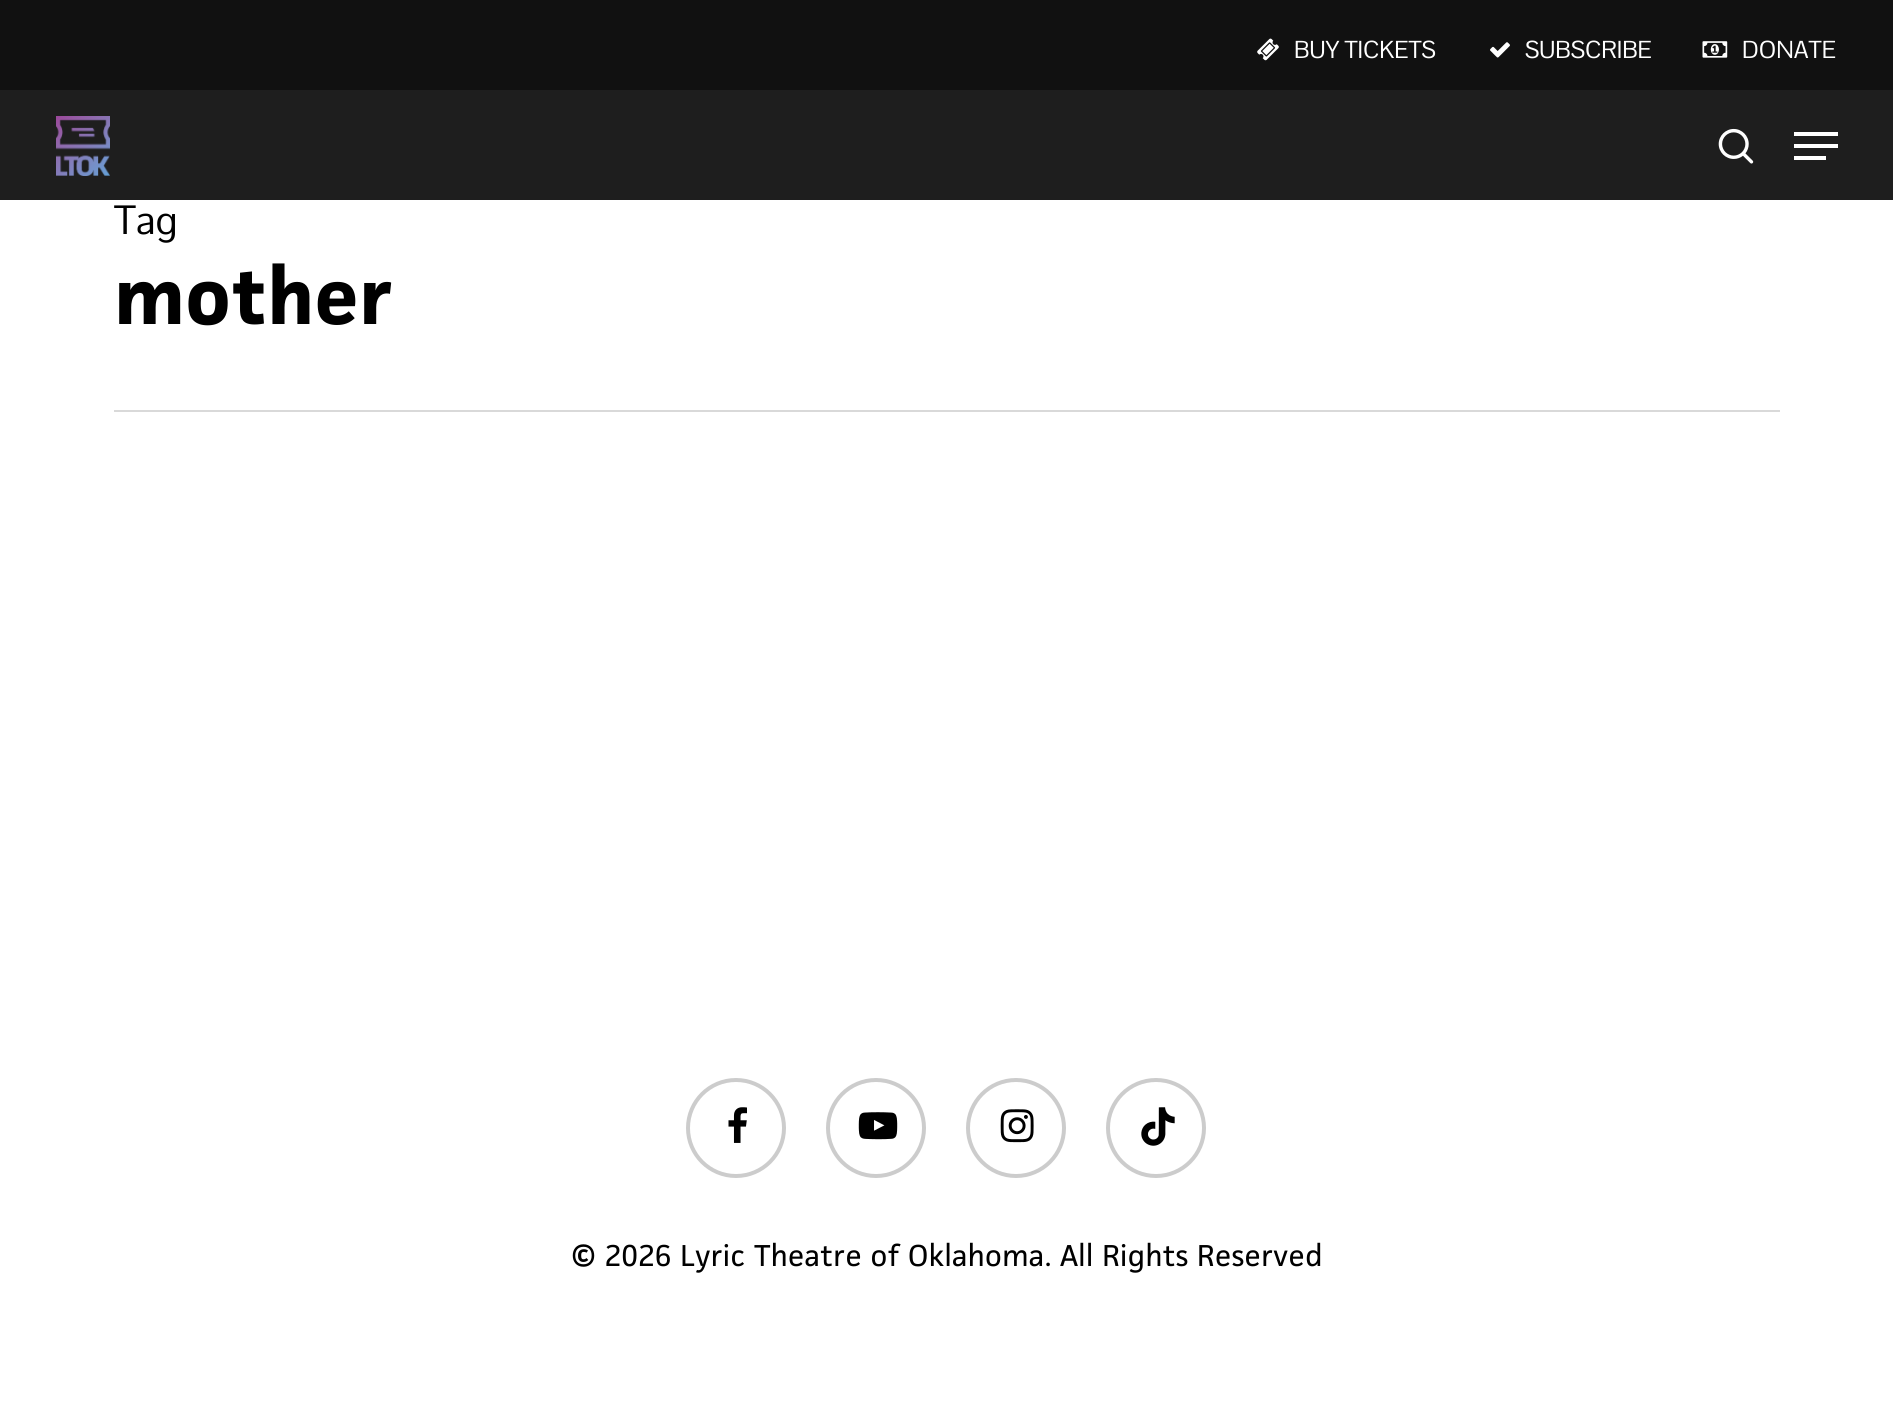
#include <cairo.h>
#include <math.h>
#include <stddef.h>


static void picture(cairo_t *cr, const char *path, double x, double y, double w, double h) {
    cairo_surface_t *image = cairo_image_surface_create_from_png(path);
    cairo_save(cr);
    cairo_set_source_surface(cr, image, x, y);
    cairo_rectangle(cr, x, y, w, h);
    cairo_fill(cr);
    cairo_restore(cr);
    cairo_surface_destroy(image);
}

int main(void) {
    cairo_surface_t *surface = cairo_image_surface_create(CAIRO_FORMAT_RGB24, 1893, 1417);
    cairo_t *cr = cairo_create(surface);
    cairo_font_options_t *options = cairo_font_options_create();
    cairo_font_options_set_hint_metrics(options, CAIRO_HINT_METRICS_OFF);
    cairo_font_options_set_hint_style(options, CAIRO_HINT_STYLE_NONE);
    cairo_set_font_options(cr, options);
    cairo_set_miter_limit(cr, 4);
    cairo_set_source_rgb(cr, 1, 1, 1);
    cairo_paint(cr);
    cairo_set_source_rgb(cr, 0.118, 0.118, 0.118);
    cairo_rectangle(cr, 0, 90, 1893, 110);
    cairo_fill(cr);
    cairo_set_source_rgb(cr, 0.067, 0.067, 0.067);
    cairo_rectangle(cr, 0, 0, 1893, 90);
    cairo_fill(cr);
    picture(cr, "img1.png", 1257, 38, 22, 23);
    cairo_select_font_face(cr, "Pontano Sans", CAIRO_FONT_SLANT_NORMAL, CAIRO_FONT_WEIGHT_NORMAL);
    cairo_set_font_size(cr, 24);
    cairo_set_source_rgb(cr, 1, 1, 1);
    cairo_move_to(cr, 1294, 58);
    cairo_show_text(cr, "BUY TICKETS");
    picture(cr, "img2.png", 1490, 42, 20, 16);
    cairo_move_to(cr, 1525, 58);
    cairo_show_text(cr, "SUBSCRIBE");
    picture(cr, "img3.png", 1702, 41, 26, 17);
    cairo_move_to(cr, 1742, 58);
    cairo_show_text(cr, "DONATE");
    picture(cr, "img4.png", 56, 116, 54, 60);
    picture(cr, "img5.png", 1718, 128, 36, 36);
    cairo_rectangle(cr, 1794, 132, 44, 4);
    cairo_fill(cr);
    cairo_rectangle(cr, 1794, 156, 32, 4);
    cairo_fill(cr);
    cairo_rectangle(cr, 1794, 144, 44, 4);
    cairo_fill(cr);
    cairo_set_source_rgb(cr, 0.851, 0.851, 0.851);
    cairo_rectangle(cr, 114, 410, 1666, 2);
    cairo_fill(cr);
    cairo_set_font_size(cr, 40);
    cairo_set_source_rgb(cr, 0, 0, 0);
    cairo_move_to(cr, 114, 234);
    cairo_show_text(cr, "Tag");
    cairo_select_font_face(cr, "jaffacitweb", CAIRO_FONT_SLANT_NORMAL, CAIRO_FONT_WEIGHT_BOLD);
    cairo_set_font_size(cr, 73);
    cairo_move_to(cr, 114, 324);
    cairo_show_text(cr, "mother");
    picture(cr, "img6.png", 728, 1107, 19, 36);
    cairo_arc(cr, 736, 1128, 48, 0, 2 * M_PI);
    cairo_set_source_rgb(cr, 0.8, 0.8, 0.8);
    cairo_set_line_width(cr, 4);
    cairo_stroke(cr);
    picture(cr, "img7.png", 858, 1112, 40, 28);
    cairo_arc(cr, 876, 1128, 48, 0, 2 * M_PI);
    cairo_stroke(cr);
    picture(cr, "img8.png", 1000, 1109, 34, 34);
    cairo_arc(cr, 1016, 1128, 48, 0, 2 * M_PI);
    cairo_stroke(cr);
    picture(cr, "img9.png", 1141, 1107, 34, 39);
    cairo_arc(cr, 1156, 1128, 48, 0, 2 * M_PI);
    cairo_stroke(cr);
    cairo_select_font_face(cr, "jaffacitweb", CAIRO_FONT_SLANT_NORMAL, CAIRO_FONT_WEIGHT_NORMAL);
    cairo_set_font_size(cr, 28);
    cairo_set_source_rgb(cr, 0, 0, 0);
    cairo_move_to(cr, 571, 1266);
    cairo_show_text(cr, "© 2026 Lyric Theatre of Oklahoma. All Rights Reserved");
    cairo_surface_write_to_png(surface, "page.png");
    cairo_font_options_destroy(options);
    cairo_destroy(cr);
    cairo_surface_destroy(surface);
    return 0;
}
